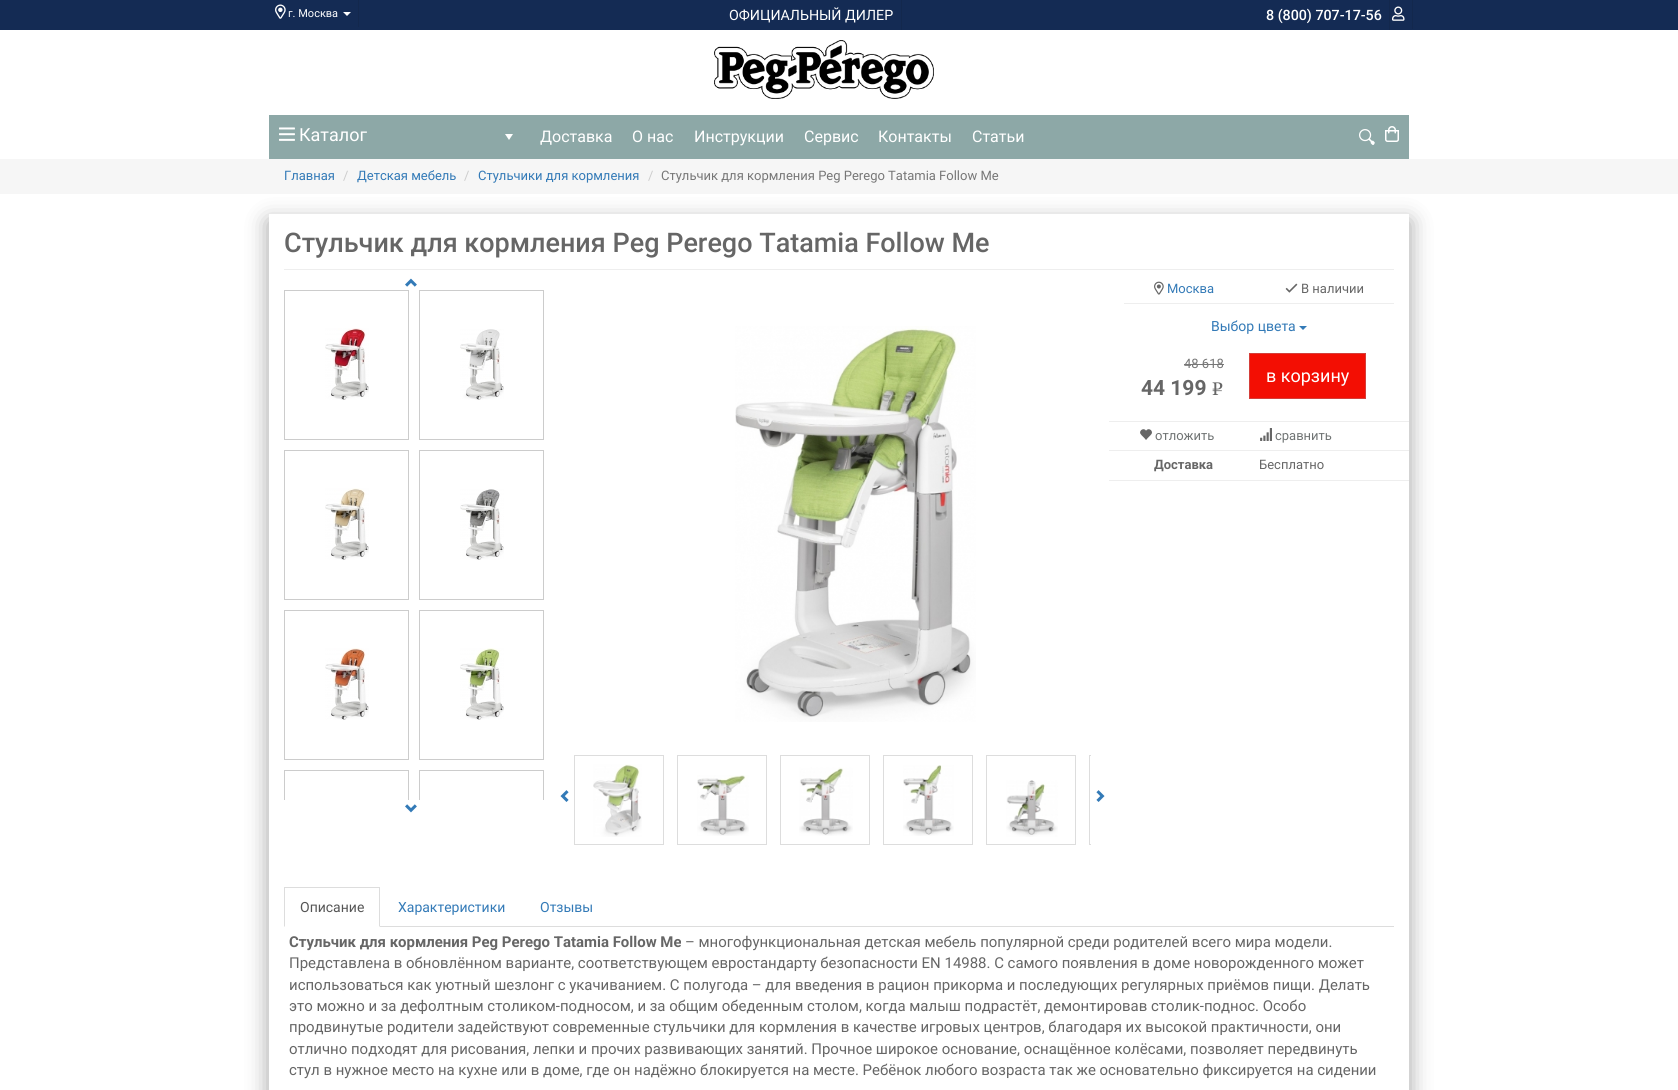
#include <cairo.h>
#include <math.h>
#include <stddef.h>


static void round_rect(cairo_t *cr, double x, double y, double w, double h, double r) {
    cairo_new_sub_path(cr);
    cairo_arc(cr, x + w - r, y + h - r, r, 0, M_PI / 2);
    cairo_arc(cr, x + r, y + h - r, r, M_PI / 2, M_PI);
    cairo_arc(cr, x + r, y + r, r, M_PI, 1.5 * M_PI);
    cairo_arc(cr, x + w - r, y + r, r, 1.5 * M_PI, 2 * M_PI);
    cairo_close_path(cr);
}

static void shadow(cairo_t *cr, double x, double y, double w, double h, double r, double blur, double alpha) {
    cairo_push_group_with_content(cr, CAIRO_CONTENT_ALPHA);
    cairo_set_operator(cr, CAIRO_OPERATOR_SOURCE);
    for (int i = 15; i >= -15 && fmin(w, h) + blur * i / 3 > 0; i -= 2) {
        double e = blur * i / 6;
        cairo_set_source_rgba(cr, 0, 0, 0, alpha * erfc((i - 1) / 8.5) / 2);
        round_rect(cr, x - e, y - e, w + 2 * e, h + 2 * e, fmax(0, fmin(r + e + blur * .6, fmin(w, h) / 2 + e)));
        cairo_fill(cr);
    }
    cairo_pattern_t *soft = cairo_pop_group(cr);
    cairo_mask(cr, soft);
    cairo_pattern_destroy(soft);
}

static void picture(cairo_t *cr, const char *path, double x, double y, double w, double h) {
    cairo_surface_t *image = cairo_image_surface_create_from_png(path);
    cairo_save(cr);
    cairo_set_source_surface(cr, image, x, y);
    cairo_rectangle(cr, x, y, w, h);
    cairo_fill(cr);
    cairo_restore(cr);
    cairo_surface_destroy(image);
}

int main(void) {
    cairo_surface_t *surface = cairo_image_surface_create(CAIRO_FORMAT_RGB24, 1678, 1090);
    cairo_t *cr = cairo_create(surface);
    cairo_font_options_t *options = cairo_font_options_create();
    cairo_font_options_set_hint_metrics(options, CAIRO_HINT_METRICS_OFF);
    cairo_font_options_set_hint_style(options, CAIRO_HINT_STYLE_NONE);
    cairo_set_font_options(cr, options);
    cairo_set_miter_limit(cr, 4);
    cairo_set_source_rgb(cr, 1, 1, 1);
    cairo_paint(cr);
    cairo_set_source_rgb(cr, 0.082, 0.169, 0.329);
    cairo_rectangle(cr, 0, 0, 1678, 30);
    cairo_fill(cr);
    cairo_set_source_rgb(cr, 0.075, 0.157, 0.302);
    cairo_rectangle(cr, 358, 0, 1, 27);
    cairo_fill(cr);
    picture(cr, "img1.png", 275, 4, 11, 15);
    cairo_select_font_face(cr, "Roboto", CAIRO_FONT_SLANT_NORMAL, CAIRO_FONT_WEIGHT_NORMAL);
    cairo_set_font_size(cr, 11);
    cairo_set_source_rgb(cr, 1, 1, 1);
    cairo_move_to(cr, 288, 17);
    cairo_show_text(cr, "г. Москва");
    cairo_new_path(cr);
    cairo_move_to(cr, 343, 12);
    cairo_line_to(cr, 351, 12);
    cairo_line_to(cr, 347, 16);
    cairo_close_path(cr);
    cairo_fill(cr);
    cairo_set_source_rgb(cr, 0.075, 0.157, 0.302);
    cairo_rectangle(cr, 901, 0, 1, 30);
    cairo_fill(cr);
    cairo_set_font_size(cr, 14.25);
    cairo_set_source_rgb(cr, 1, 1, 1);
    cairo_move_to(cr, 729, 20);
    cairo_show_text(cr, "ОФИЦИАЛЬНЫЙ ДИЛЕР");
    cairo_set_source_rgb(cr, 0.075, 0.157, 0.302);
    cairo_rectangle(cr, 1389, 0, 1, 30);
    cairo_fill(cr);
    cairo_select_font_face(cr, "Roboto Medium", CAIRO_FONT_SLANT_NORMAL, CAIRO_FONT_WEIGHT_NORMAL);
    cairo_set_source_rgb(cr, 1, 1, 1);
    cairo_move_to(cr, 1266, 20);
    cairo_show_text(cr, "8 (800) 707-17-56");
    cairo_set_source_rgb(cr, 0.075, 0.157, 0.302);
    cairo_rectangle(cr, 1412, 0, 1, 29);
    cairo_fill(cr);
    picture(cr, "img2.png", 1392, 6, 13, 15);
    picture(cr, "img3.png", 714, 40, 220, 59);
    cairo_set_source_rgb(cr, 0.553, 0.659, 0.655);
    cairo_rectangle(cr, 269, 115, 1140, 44);
    cairo_fill(cr);
    picture(cr, "img4.png", 279, 127, 16, 14);
    cairo_select_font_face(cr, "Roboto", CAIRO_FONT_SLANT_NORMAL, CAIRO_FONT_WEIGHT_NORMAL);
    cairo_set_font_size(cr, 18);
    cairo_set_source_rgb(cr, 1, 1, 1);
    cairo_move_to(cr, 299, 141);
    cairo_show_text(cr, "Каталог");
    cairo_new_path(cr);
    cairo_move_to(cr, 505, 134);
    cairo_line_to(cr, 513, 134);
    cairo_line_to(cr, 509, 140);
    cairo_close_path(cr);
    cairo_fill(cr);
    cairo_set_font_size(cr, 16);
    cairo_move_to(cr, 540, 142);
    cairo_show_text(cr, "Доставка");
    cairo_move_to(cr, 632, 142);
    cairo_show_text(cr, "О нас");
    cairo_move_to(cr, 694, 142);
    cairo_show_text(cr, "Инструкции");
    cairo_move_to(cr, 804, 142);
    cairo_show_text(cr, "Сервис");
    cairo_move_to(cr, 878, 142);
    cairo_show_text(cr, "Контакты");
    cairo_move_to(cr, 972, 142);
    cairo_show_text(cr, "Статьи");
    picture(cr, "img5.png", 1359, 129, 16, 16);
    picture(cr, "img6.png", 1385, 126, 14, 16);
    cairo_set_source_rgb(cr, 0.961, 0.961, 0.961);
    cairo_rectangle(cr, 0, 159, 1678, 35);
    cairo_fill(cr);
    cairo_set_font_size(cr, 13);
    cairo_set_source_rgb(cr, 0.2, 0.478, 0.718);
    cairo_move_to(cr, 284, 180);
    cairo_show_text(cr, "Главная");
    cairo_set_source_rgb(cr, 0.8, 0.8, 0.8);
    cairo_move_to(cr, 343, 180);
    cairo_show_text(cr, "/");
    cairo_set_source_rgb(cr, 0.2, 0.478, 0.718);
    cairo_move_to(cr, 357, 180);
    cairo_show_text(cr, "Детская мебель");
    cairo_set_source_rgb(cr, 0.8, 0.8, 0.8);
    cairo_move_to(cr, 464, 180);
    cairo_show_text(cr, "/");
    cairo_set_source_rgb(cr, 0.2, 0.478, 0.718);
    cairo_move_to(cr, 478, 180);
    cairo_show_text(cr, "Стульчики для кормления");
    cairo_set_source_rgb(cr, 0.8, 0.8, 0.8);
    cairo_move_to(cr, 648, 180);
    cairo_show_text(cr, "/");
    cairo_set_source_rgb(cr, 0.467, 0.467, 0.467);
    cairo_move_to(cr, 661, 180);
    cairo_show_text(cr, "Стульчик для кормления Peg Perego Tatamia Follow Me");
    cairo_save(cr);
    cairo_set_fill_rule(cr, CAIRO_FILL_RULE_EVEN_ODD);
    cairo_new_path(cr);
    cairo_move_to(cr, 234, 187);
    cairo_line_to(cr, 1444, 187);
    cairo_line_to(cr, 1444, 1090);
    cairo_line_to(cr, 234, 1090);
    cairo_close_path(cr);
    cairo_move_to(cr, 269, 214);
    cairo_line_to(cr, 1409, 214);
    cairo_line_to(cr, 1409, 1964);
    cairo_line_to(cr, 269, 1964);
    cairo_close_path(cr);
    cairo_clip(cr);
    cairo_set_source_rgb(cr, 0, 0, 0);
    shadow(cr, 268, 221, 1142, 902, 0, 11, 0.35);
    cairo_restore(cr);
    cairo_select_font_face(cr, "Roboto Medium", CAIRO_FONT_SLANT_NORMAL, CAIRO_FONT_WEIGHT_NORMAL);
    cairo_set_font_size(cr, 27);
    cairo_set_source_rgb(cr, 0.4, 0.4, 0.4);
    cairo_move_to(cr, 284, 252);
    cairo_show_text(cr, "Стульчик для кормления Peg Perego Tatamia Follow Me");
    cairo_set_source_rgb(cr, 0.933, 0.933, 0.933);
    cairo_rectangle(cr, 284, 269, 1110, 1);
    cairo_fill(cr);
    picture(cr, "img7.png", 405, 278, 12, 9);
    cairo_rectangle(cr, 284.5, 290.5, 124, 149);
    cairo_set_source_rgb(cr, 0.8, 0.8, 0.8);
    cairo_set_line_width(cr, 1);
    cairo_stroke(cr);
    picture(cr, "img8.png", 325, 328, 44, 72);
    cairo_rectangle(cr, 419.5, 290.5, 124, 149);
    cairo_stroke(cr);
    picture(cr, "img9.png", 460, 329, 44, 71);
    cairo_rectangle(cr, 284.5, 450.5, 124, 149);
    cairo_stroke(cr);
    picture(cr, "img10.png", 325, 488, 44, 72);
    cairo_rectangle(cr, 419.5, 450.5, 124, 149);
    cairo_stroke(cr);
    picture(cr, "img11.png", 460, 489, 44, 71);
    cairo_rectangle(cr, 284.5, 610.5, 124, 149);
    cairo_stroke(cr);
    picture(cr, "img12.png", 325, 648, 44, 72);
    cairo_rectangle(cr, 419.5, 610.5, 124, 149);
    cairo_stroke(cr);
    picture(cr, "img13.png", 460, 648, 44, 72);
    cairo_save(cr);
    cairo_rectangle(cr, 284, 290, 275, 510);
    cairo_clip(cr);
    cairo_rectangle(cr, 284.5, 770.5, 124, 149);
    cairo_stroke(cr);
    cairo_rectangle(cr, 419.5, 770.5, 124, 149);
    cairo_stroke(cr);
    cairo_restore(cr);
    picture(cr, "img14.png", 405, 804, 12, 9);
    picture(cr, "img15.png", 735, 326, 241, 396);
    picture(cr, "img16.png", 560, 790, 9, 12);
    cairo_rectangle(cr, 574.5, 755.5, 89, 89);
    cairo_set_source_rgb(cr, 0.867, 0.867, 0.867);
    cairo_stroke(cr);
    picture(cr, "img17.png", 593, 764, 49, 73);
    cairo_rectangle(cr, 677.5, 755.5, 89, 89);
    cairo_stroke(cr);
    picture(cr, "img18.png", 697, 775, 52, 61);
    cairo_rectangle(cr, 780.5, 755.5, 89, 89);
    cairo_stroke(cr);
    picture(cr, "img19.png", 799, 767, 54, 69);
    cairo_rectangle(cr, 883.5, 755.5, 89, 89);
    cairo_stroke(cr);
    picture(cr, "img20.png", 903, 765, 51, 71);
    cairo_rectangle(cr, 986.5, 755.5, 89, 89);
    cairo_stroke(cr);
    picture(cr, "img21.png", 1006, 780, 52, 57);
    cairo_save(cr);
    cairo_rectangle(cr, 574, 755, 517, 92);
    cairo_clip(cr);
    cairo_rectangle(cr, 1089.5, 755.5, 89, 89);
    cairo_stroke(cr);
    cairo_restore(cr);
    picture(cr, "img22.png", 1096, 790, 9, 12);
    picture(cr, "img23.png", 1154, 281, 10, 14);
    cairo_select_font_face(cr, "Roboto", CAIRO_FONT_SLANT_NORMAL, CAIRO_FONT_WEIGHT_NORMAL);
    cairo_set_font_size(cr, 13);
    cairo_set_source_rgb(cr, 0.2, 0.478, 0.718);
    cairo_move_to(cr, 1167, 293);
    cairo_show_text(cr, "Москва");
    picture(cr, "img24.png", 1285, 283, 13, 10);
    cairo_set_source_rgb(cr, 0.4, 0.4, 0.4);
    cairo_move_to(cr, 1301, 293);
    cairo_show_text(cr, "В наличии");
    cairo_set_source_rgb(cr, 0.933, 0.933, 0.933);
    cairo_rectangle(cr, 1124, 303, 270, 1);
    cairo_fill(cr);
    cairo_set_font_size(cr, 14);
    cairo_set_source_rgb(cr, 0.2, 0.478, 0.718);
    cairo_move_to(cr, 1211, 331);
    cairo_show_text(cr, "Выбор цвета");
    cairo_new_path(cr);
    cairo_move_to(cr, 1299, 326);
    cairo_line_to(cr, 1307, 326);
    cairo_line_to(cr, 1303, 330);
    cairo_close_path(cr);
    cairo_fill(cr);
    cairo_set_font_size(cr, 13);
    cairo_set_source_rgb(cr, 0.467, 0.467, 0.467);
    cairo_move_to(cr, 1184, 368);
    cairo_show_text(cr, "48 618");
    cairo_rectangle(cr, 1184, 364, 40, 1);
    cairo_fill(cr);
    cairo_select_font_face(cr, "Roboto", CAIRO_FONT_SLANT_NORMAL, CAIRO_FONT_WEIGHT_BOLD);
    cairo_set_font_size(cr, 21);
    cairo_set_source_rgb(cr, 0.4, 0.4, 0.4);
    cairo_move_to(cr, 1141, 395);
    cairo_show_text(cr, "44 199");
    cairo_select_font_face(cr, "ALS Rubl", CAIRO_FONT_SLANT_NORMAL, CAIRO_FONT_WEIGHT_NORMAL);
    cairo_set_font_size(cr, 18);
    cairo_move_to(cr, 1211, 395);
    cairo_show_text(cr, "e");
    cairo_set_source_rgb(cr, 0.953, 0.055, 0.012);
    cairo_rectangle(cr, 1249.5, 353.5, 116, 45);
    cairo_fill_preserve(cr);
    cairo_set_source_rgb(cr, 0.831, 0.247, 0.227);
    cairo_stroke(cr);
    cairo_select_font_face(cr, "Roboto", CAIRO_FONT_SLANT_NORMAL, CAIRO_FONT_WEIGHT_NORMAL);
    cairo_set_source_rgb(cr, 1, 1, 1);
    cairo_move_to(cr, 1266, 382);
    cairo_show_text(cr, "в корзину");
    cairo_set_source_rgb(cr, 0.933, 0.933, 0.933);
    cairo_rectangle(cr, 1109, 421, 300, 1);
    cairo_fill(cr);
    picture(cr, "img25.png", 1140, 429, 12, 11);
    cairo_set_font_size(cr, 13);
    cairo_set_source_rgb(cr, 0.439, 0.455, 0.455);
    cairo_move_to(cr, 1155, 440);
    cairo_show_text(cr, "отложить");
    picture(cr, "img26.png", 1260, 428, 12, 13);
    cairo_move_to(cr, 1275, 440);
    cairo_show_text(cr, "сравнить");
    cairo_set_source_rgb(cr, 0.933, 0.933, 0.933);
    cairo_rectangle(cr, 1109, 450, 300, 1);
    cairo_fill(cr);
    cairo_select_font_face(cr, "Roboto", CAIRO_FONT_SLANT_NORMAL, CAIRO_FONT_WEIGHT_BOLD);
    cairo_set_source_rgb(cr, 0.4, 0.4, 0.4);
    cairo_move_to(cr, 1154, 469);
    cairo_show_text(cr, "Доставка");
    cairo_select_font_face(cr, "Roboto", CAIRO_FONT_SLANT_NORMAL, CAIRO_FONT_WEIGHT_NORMAL);
    cairo_move_to(cr, 1259, 469);
    cairo_show_text(cr, "Бесплатно");
    cairo_set_source_rgb(cr, 0.933, 0.933, 0.933);
    cairo_rectangle(cr, 1109, 480, 300, 1);
    cairo_fill(cr);
    cairo_set_source_rgb(cr, 0.867, 0.867, 0.867);
    cairo_rectangle(cr, 380, 926, 1014, 1);
    cairo_fill(cr);
    cairo_rectangle(cr, 284, 887, 96, 1);
    cairo_fill(cr);
    cairo_new_path(cr);
    cairo_move_to(cr, 380, 887);
    cairo_line_to(cr, 380, 927);
    cairo_line_to(cr, 379, 926);
    cairo_line_to(cr, 379, 888);
    cairo_close_path(cr);
    cairo_fill(cr);
    cairo_new_path(cr);
    cairo_move_to(cr, 284, 927);
    cairo_line_to(cr, 284, 887);
    cairo_line_to(cr, 285, 888);
    cairo_line_to(cr, 285, 926);
    cairo_close_path(cr);
    cairo_fill(cr);
    cairo_set_font_size(cr, 14);
    cairo_set_source_rgb(cr, 0.333, 0.333, 0.333);
    cairo_move_to(cr, 300, 912);
    cairo_show_text(cr, "Описание");
    cairo_set_source_rgb(cr, 0.2, 0.478, 0.718);
    cairo_move_to(cr, 398, 912);
    cairo_show_text(cr, "Характеристики");
    cairo_move_to(cr, 540, 912);
    cairo_show_text(cr, "Отзывы");
    cairo_select_font_face(cr, "Roboto", CAIRO_FONT_SLANT_NORMAL, CAIRO_FONT_WEIGHT_BOLD);
    cairo_set_font_size(cr, 14.95);
    cairo_set_source_rgb(cr, 0.4, 0.4, 0.4);
    cairo_move_to(cr, 289, 947);
    cairo_show_text(cr, "Стульчик для кормления Peg Perego Tatamia Follow Me");
    cairo_select_font_face(cr, "Roboto", CAIRO_FONT_SLANT_NORMAL, CAIRO_FONT_WEIGHT_NORMAL);
    cairo_move_to(cr, 685, 947);
    cairo_show_text(cr, "– многофункциональная детская мебель популярной среди родителей всего мира модели.");
    cairo_move_to(cr, 289, 968);
    cairo_show_text(cr, "Представлена в обновлённом варианте, соответствующем евростандарту безопасности EN 14988. С самого появления в доме новорожденного может");
    cairo_move_to(cr, 289, 990);
    cairo_show_text(cr, "использоваться как уютный шезлонг с укачиванием. С полугода – для введения в рацион прикорма и последующих регулярных приёмов пищи. Делать");
    cairo_move_to(cr, 289, 1011);
    cairo_show_text(cr, "это можно и за дефолтным столиком-подносом, и за общим обеденным столом, когда малыш подрастёт, демонтировав столик-поднос. Особо");
    cairo_move_to(cr, 289, 1032);
    cairo_show_text(cr, "продвинутые родители задействуют современные стульчики для кормления в качестве игровых центров, благодаря их высокой практичности, они");
    cairo_move_to(cr, 289, 1054);
    cairo_show_text(cr, "отлично подходят для рисования, лепки и прочих развивающих занятий. Прочное широкое основание, оснащённое колёсами, позволяет передвинуть");
    cairo_move_to(cr, 289, 1075);
    cairo_show_text(cr, "стул в нужное место на кухне или в доме, где он надёжно блокируется на месте. Ребёнок любого возраста так же основательно фиксируется на сидении");
    cairo_surface_write_to_png(surface, "page.png");
    cairo_font_options_destroy(options);
    cairo_destroy(cr);
    cairo_surface_destroy(surface);
    return 0;
}
